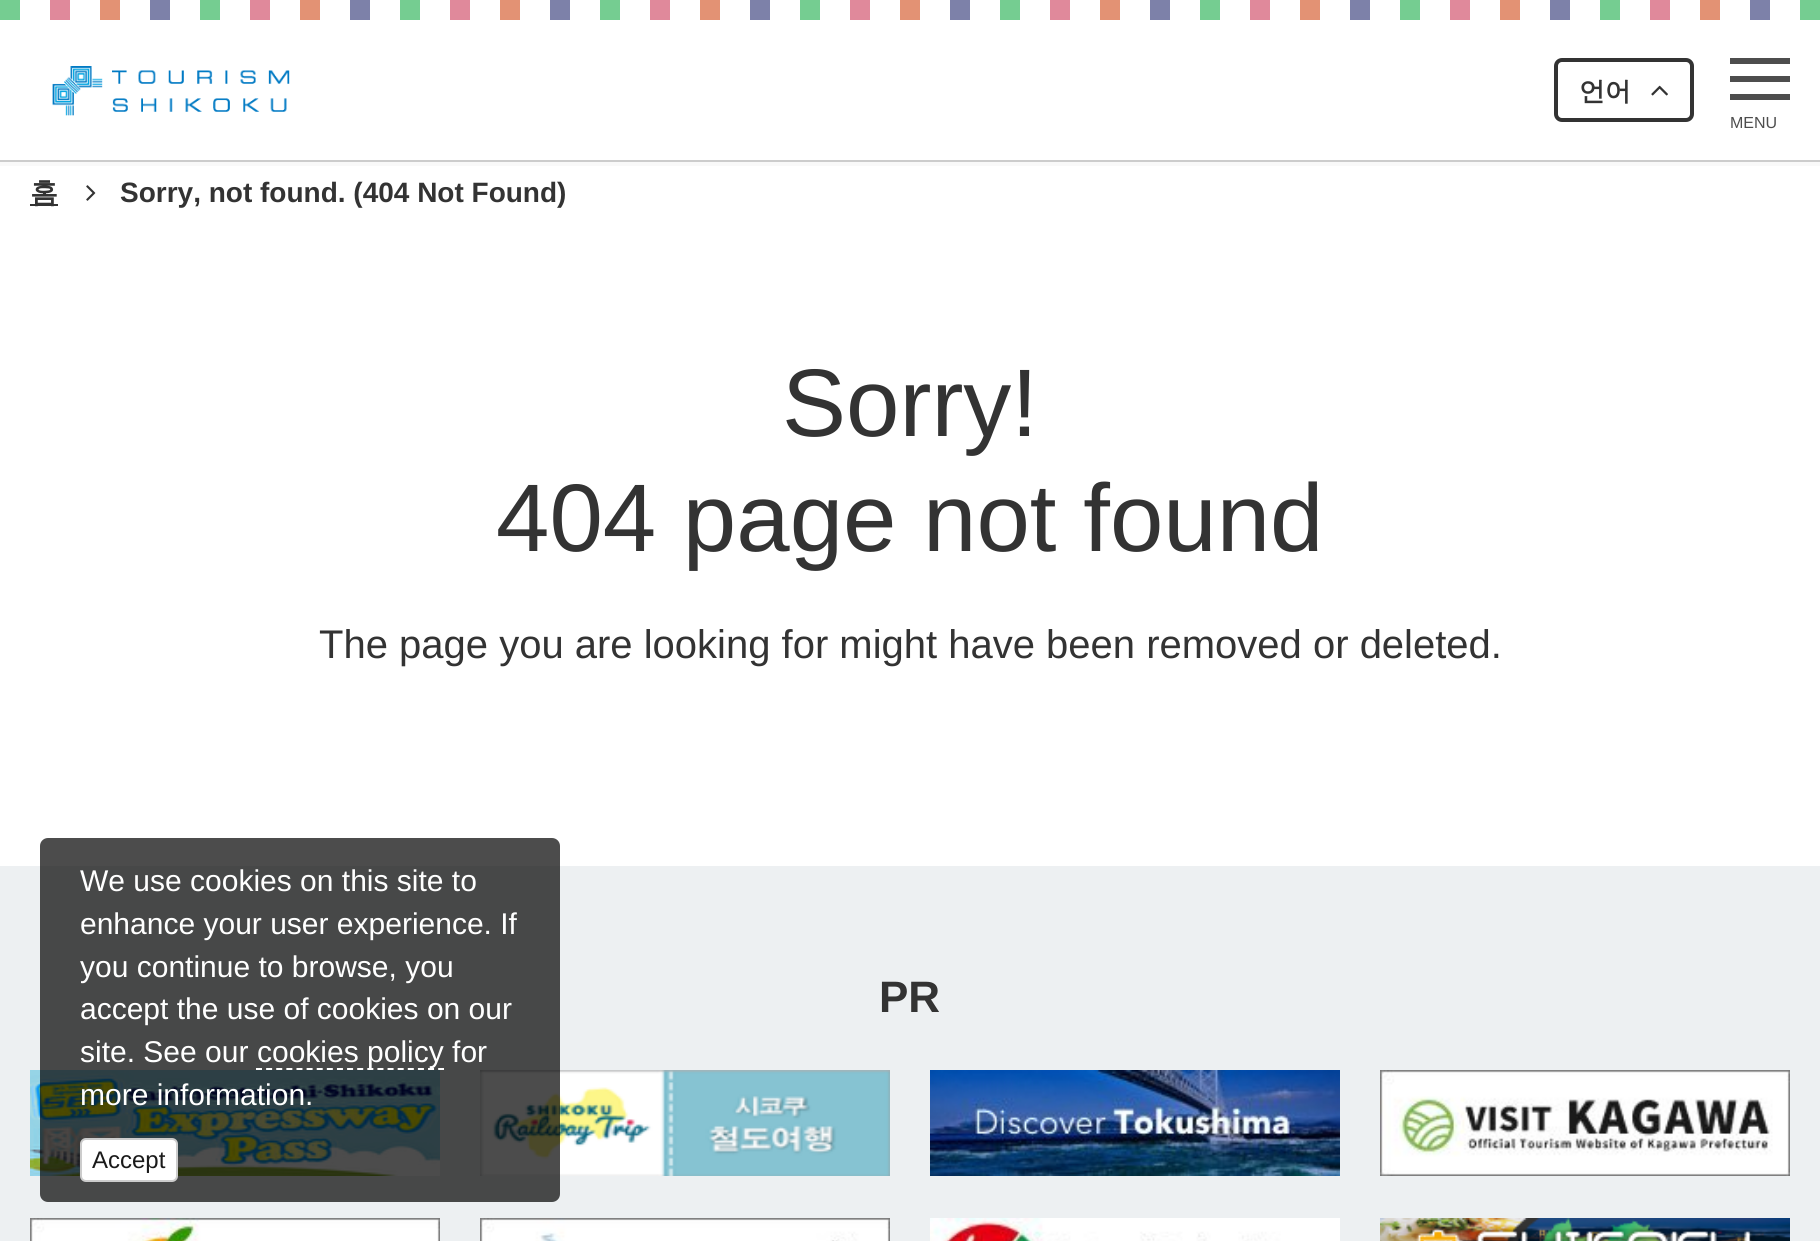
#include <cairo.h>
#include <math.h>
#include <stddef.h>


static void round_rect(cairo_t *cr, double x, double y, double w, double h, double r) {
    cairo_new_sub_path(cr);
    cairo_arc(cr, x + w - r, y + h - r, r, 0, M_PI / 2);
    cairo_arc(cr, x + r, y + h - r, r, M_PI / 2, M_PI);
    cairo_arc(cr, x + r, y + r, r, M_PI, 1.5 * M_PI);
    cairo_arc(cr, x + w - r, y + r, r, 1.5 * M_PI, 2 * M_PI);
    cairo_close_path(cr);
}

static void picture(cairo_t *cr, const char *path, double x, double y, double w, double h) {
    cairo_surface_t *image = cairo_image_surface_create_from_png(path);
    cairo_save(cr);
    cairo_set_source_surface(cr, image, x, y);
    cairo_rectangle(cr, x, y, w, h);
    cairo_fill(cr);
    cairo_restore(cr);
    cairo_surface_destroy(image);
}

int main(void) {
    cairo_surface_t *surface = cairo_image_surface_create(CAIRO_FORMAT_RGB24, 1820, 1241);
    cairo_t *cr = cairo_create(surface);
    cairo_font_options_t *options = cairo_font_options_create();
    cairo_font_options_set_hint_metrics(options, CAIRO_HINT_METRICS_OFF);
    cairo_font_options_set_hint_style(options, CAIRO_HINT_STYLE_NONE);
    cairo_set_font_options(cr, options);
    cairo_set_miter_limit(cr, 4);
    cairo_set_source_rgb(cr, 1, 1, 1);
    cairo_paint(cr);
    picture(cr, "img1.png", 0, 0, 1820, 20);
    cairo_set_source_rgb(cr, 0.973, 0.973, 0.973);
    cairo_rectangle(cr, 0, 162, 1820, 4);
    cairo_fill(cr);
    cairo_set_source_rgb(cr, 0.8, 0.8, 0.8);
    cairo_rectangle(cr, 0, 160, 1820, 2);
    cairo_fill(cr);
    picture(cr, "img2.png", 52, 66, 238, 50);
    round_rect(cr, 1556, 60, 136, 60, 6);
    cairo_set_source_rgb(cr, 0.2, 0.2, 0.2);
    cairo_set_line_width(cr, 4);
    cairo_stroke(cr);
    cairo_select_font_face(cr, "WenQuanYi Zen Hei", CAIRO_FONT_SLANT_NORMAL, CAIRO_FONT_WEIGHT_BOLD);
    cairo_set_font_size(cr, 26);
    cairo_move_to(cr, 1579, 100);
    cairo_show_text(cr, "언어");
    picture(cr, "img3.png", 1651, 85, 17, 11);
    cairo_set_source_rgb(cr, 0.302, 0.302, 0.302);
    cairo_rectangle(cr, 1730, 76, 60, 6);
    cairo_fill(cr);
    cairo_rectangle(cr, 1730, 58, 60, 6);
    cairo_fill(cr);
    cairo_rectangle(cr, 1730, 94, 60, 6);
    cairo_fill(cr);
    cairo_select_font_face(cr, "Liberation Sans", CAIRO_FONT_SLANT_NORMAL, CAIRO_FONT_WEIGHT_NORMAL);
    cairo_set_font_size(cr, 16);
    cairo_move_to(cr, 1730, 128);
    cairo_show_text(cr, "MENU");
    cairo_set_source_rgb(cr, 0.2, 0.2, 0.2);
    cairo_rectangle(cr, 30, 204, 28, 2);
    cairo_fill(cr);
    cairo_select_font_face(cr, "WenQuanYi Zen Hei", CAIRO_FONT_SLANT_NORMAL, CAIRO_FONT_WEIGHT_BOLD);
    cairo_set_font_size(cr, 28);
    cairo_move_to(cr, 30, 202);
    cairo_show_text(cr, "홈");
    picture(cr, "img4.png", 86, 185, 10, 16);
    cairo_select_font_face(cr, "Liberation Sans", CAIRO_FONT_SLANT_NORMAL, CAIRO_FONT_WEIGHT_BOLD);
    cairo_move_to(cr, 120, 202);
    cairo_show_text(cr, "Sorry, not found. (404 Not Found)");
    cairo_select_font_face(cr, "Liberation Sans", CAIRO_FONT_SLANT_NORMAL, CAIRO_FONT_WEIGHT_NORMAL);
    cairo_set_font_size(cr, 96);
    cairo_move_to(cr, 782, 436);
    cairo_show_text(cr, "Sorry!");
    cairo_move_to(cr, 496, 551);
    cairo_show_text(cr, "404 page not found");
    cairo_set_font_size(cr, 40);
    cairo_move_to(cr, 319, 658);
    cairo_show_text(cr, "The page you are looking for might have been removed or deleted.");
    cairo_set_source_rgb(cr, 0.929, 0.941, 0.949);
    cairo_rectangle(cr, 0, 866, 1820, 375);
    cairo_fill(cr);
    picture(cr, "img5.png", 30, 1070, 410, 106);
    picture(cr, "img6.png", 480, 1070, 410, 106);
    cairo_set_source_rgba(cr, 0, 0, 0, 0.7);
    round_rect(cr, 40, 838, 520, 364, 8);
    cairo_fill(cr);
    cairo_set_font_size(cr, 30);
    cairo_set_source_rgb(cr, 1, 1, 1);
    cairo_move_to(cr, 80, 891);
    cairo_show_text(cr, "We use cookies on this site to");
    cairo_move_to(cr, 80, 934);
    cairo_show_text(cr, "enhance your user experience. If");
    cairo_move_to(cr, 80, 977);
    cairo_show_text(cr, "you continue to browse, you");
    cairo_move_to(cr, 80, 1019);
    cairo_show_text(cr, "accept the use of cookies on our");
    cairo_move_to(cr, 80, 1062);
    cairo_show_text(cr, "site. See our");
    cairo_new_path(cr);
    cairo_move_to(cr, 256, 1069);
    cairo_line_to(cr, 444, 1069);
    cairo_set_line_width(cr, 2);
    cairo_set_dash(cr, (double[]){6, 4.12}, 2, 0);
    cairo_stroke(cr);
    cairo_move_to(cr, 257, 1062);
    cairo_show_text(cr, "cookies policy for");
    cairo_move_to(cr, 80, 1105);
    cairo_show_text(cr, "more information.");
    round_rect(cr, 81, 1139, 96, 42, 5);
    cairo_fill_preserve(cr);
    cairo_set_source_rgb(cr, 0.8, 0.8, 0.8);
    cairo_set_dash(cr, NULL, 0, 0);
    cairo_stroke(cr);
    cairo_set_font_size(cr, 24);
    cairo_set_source_rgb(cr, 0.102, 0.102, 0.102);
    cairo_move_to(cr, 92, 1168);
    cairo_show_text(cr, "Accept");
    cairo_select_font_face(cr, "Liberation Sans", CAIRO_FONT_SLANT_NORMAL, CAIRO_FONT_WEIGHT_BOLD);
    cairo_set_font_size(cr, 44);
    cairo_set_source_rgb(cr, 0.2, 0.2, 0.2);
    cairo_move_to(cr, 879, 1012);
    cairo_show_text(cr, "PR");
    picture(cr, "img7.png", 930, 1070, 410, 106);
    picture(cr, "img8.png", 1380, 1070, 410, 106);
    picture(cr, "img9.png", 30, 1218, 410, 23);
    picture(cr, "img10.png", 480, 1218, 410, 23);
    picture(cr, "img11.png", 930, 1218, 410, 23);
    picture(cr, "img12.png", 1380, 1218, 410, 23);
    cairo_surface_write_to_png(surface, "page.png");
    cairo_font_options_destroy(options);
    cairo_destroy(cr);
    cairo_surface_destroy(surface);
    return 0;
}
